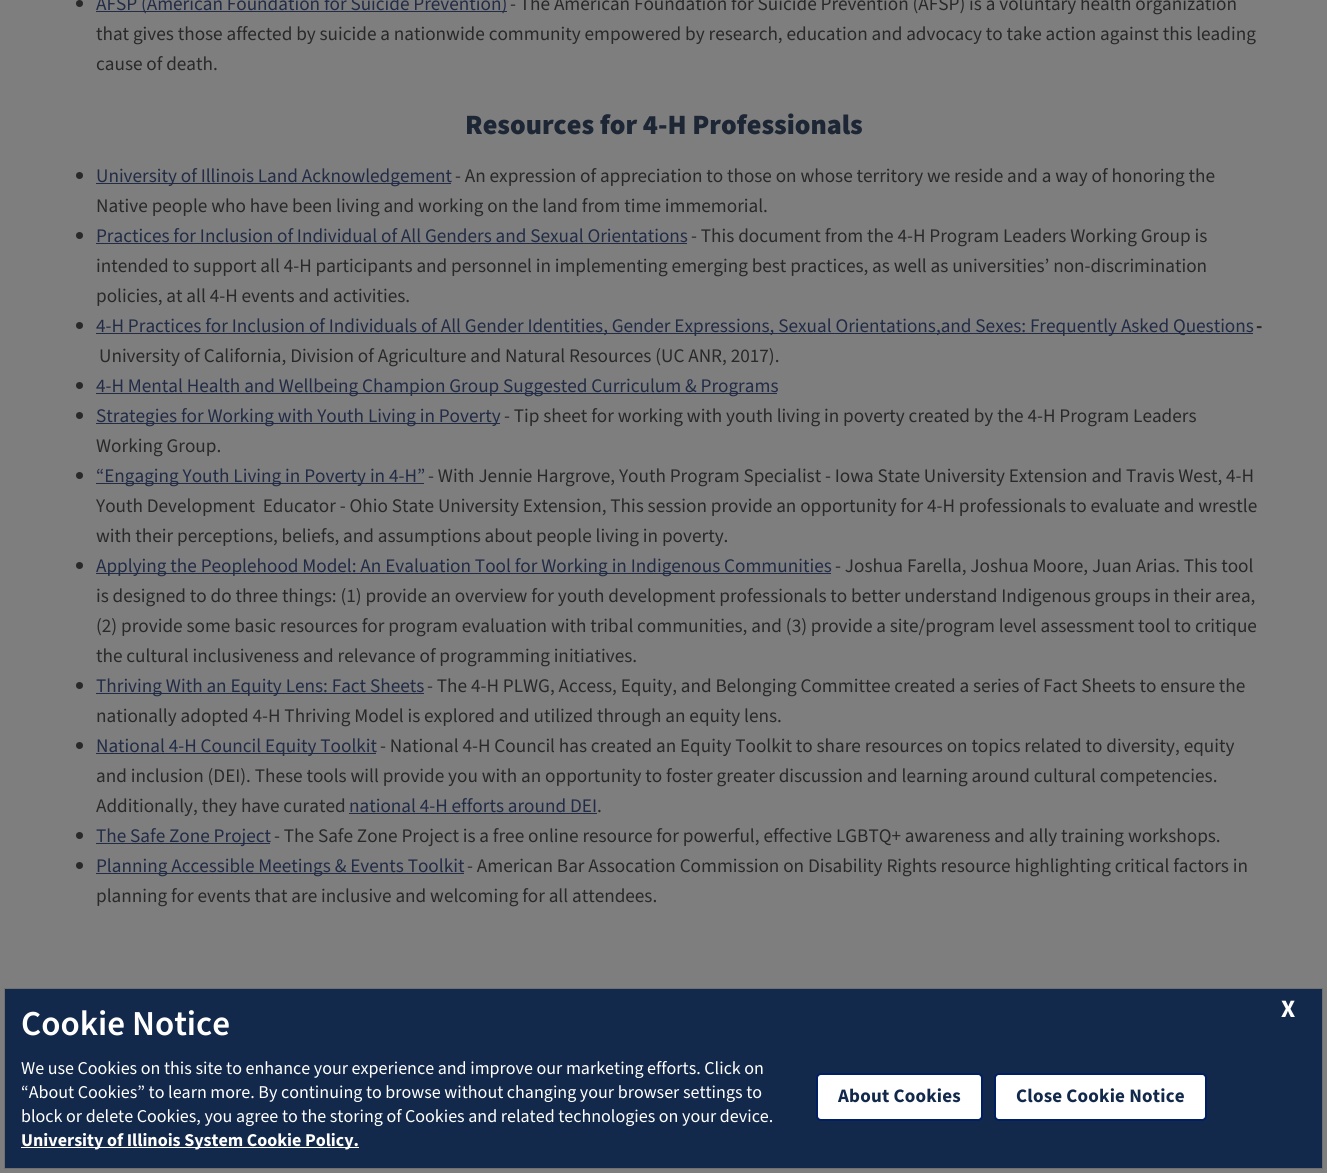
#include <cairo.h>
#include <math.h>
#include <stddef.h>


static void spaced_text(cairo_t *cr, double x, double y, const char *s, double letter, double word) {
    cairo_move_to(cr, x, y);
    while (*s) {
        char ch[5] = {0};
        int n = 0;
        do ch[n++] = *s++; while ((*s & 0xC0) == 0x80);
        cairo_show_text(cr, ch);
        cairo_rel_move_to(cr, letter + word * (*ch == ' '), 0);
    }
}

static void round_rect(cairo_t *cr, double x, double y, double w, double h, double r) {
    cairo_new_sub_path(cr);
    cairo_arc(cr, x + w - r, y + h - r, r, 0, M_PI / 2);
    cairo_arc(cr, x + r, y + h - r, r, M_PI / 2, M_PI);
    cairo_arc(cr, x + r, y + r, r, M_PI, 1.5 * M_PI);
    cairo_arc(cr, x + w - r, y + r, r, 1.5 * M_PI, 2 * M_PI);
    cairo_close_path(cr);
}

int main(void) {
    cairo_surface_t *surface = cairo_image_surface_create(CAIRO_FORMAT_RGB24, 1327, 1173);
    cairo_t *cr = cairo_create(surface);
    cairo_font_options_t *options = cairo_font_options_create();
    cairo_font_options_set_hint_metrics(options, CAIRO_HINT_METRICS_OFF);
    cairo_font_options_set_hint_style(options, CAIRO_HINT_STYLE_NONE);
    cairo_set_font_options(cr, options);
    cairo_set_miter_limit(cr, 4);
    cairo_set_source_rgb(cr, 0.494, 0.494, 0.494);
    cairo_paint(cr);
    cairo_set_source_rgb(cr, 0.161, 0.161, 0.161);
    cairo_arc(cr, 79.5, 3.5, 3.5, 0, 2 * M_PI);
    cairo_fill(cr);
    cairo_set_source_rgb(cr, 0.133, 0.173, 0.275);
    cairo_rectangle(cr, 96, 11, 411, 1);
    cairo_fill(cr);
    cairo_select_font_face(cr, "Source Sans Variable", CAIRO_FONT_SLANT_NORMAL, CAIRO_FONT_WEIGHT_NORMAL);
    cairo_set_font_size(cr, 19.2);
    cairo_move_to(cr, 96, 10);
    cairo_show_text(cr, "AFSP (American Foundation for Suicide Prevention)");
    cairo_set_source_rgb(cr, 0.161, 0.161, 0.161);
    cairo_move_to(cr, 510, 10);
    cairo_show_text(cr, "- The American Foundation for Suicide Prevention (AFSP) is a voluntary health organization");
    cairo_move_to(cr, 96, 40);
    cairo_show_text(cr, "that gives those affected by suicide a nationwide community empowered by research, education and advocacy to take action against this leading");
    cairo_move_to(cr, 96, 70);
    cairo_show_text(cr, "cause of death.");
    cairo_select_font_face(cr, "Source Sans Variable Black", CAIRO_FONT_SLANT_NORMAL, CAIRO_FONT_WEIGHT_NORMAL);
    cairo_set_font_size(cr, 28);
    cairo_set_source_rgb(cr, 0.114, 0.149, 0.204);
    cairo_move_to(cr, 465, 134);
    cairo_show_text(cr, "Resources for 4-H Professionals");
    cairo_set_source_rgb(cr, 0.161, 0.161, 0.161);
    cairo_new_path(cr);
    cairo_arc(cr, 79.5, 175.5, 3.5, 0, 2 * M_PI);
    cairo_fill(cr);
    cairo_set_source_rgb(cr, 0.133, 0.173, 0.275);
    cairo_rectangle(cr, 96, 183, 355, 1);
    cairo_fill(cr);
    cairo_select_font_face(cr, "Source Sans Variable", CAIRO_FONT_SLANT_NORMAL, CAIRO_FONT_WEIGHT_NORMAL);
    cairo_set_font_size(cr, 19.2);
    cairo_move_to(cr, 96, 182);
    cairo_show_text(cr, "University of Illinois Land Acknowledgement");
    cairo_set_source_rgb(cr, 0.161, 0.161, 0.161);
    cairo_move_to(cr, 455, 182);
    cairo_show_text(cr, "- An expression of appreciation to those on whose territory we reside and a way of honoring the");
    cairo_move_to(cr, 96, 212);
    cairo_show_text(cr, "Native people who have been living and working on the land from time immemorial.");
    cairo_new_path(cr);
    cairo_arc(cr, 79.5, 235.5, 3.5, 0, 2 * M_PI);
    cairo_fill(cr);
    cairo_set_source_rgb(cr, 0.133, 0.173, 0.275);
    cairo_move_to(cr, 96, 242);
    cairo_show_text(cr, "Practices for Inclusion of Individual of All Genders and Sexual Orientations");
    cairo_rectangle(cr, 96, 243, 591, 1);
    cairo_fill(cr);
    cairo_set_source_rgb(cr, 0.161, 0.161, 0.161);
    cairo_move_to(cr, 691, 242);
    cairo_show_text(cr, "- This document from the 4-H Program Leaders Working Group is");
    cairo_move_to(cr, 96, 272);
    cairo_show_text(cr, "intended to support all 4-H participants and personnel in implementing emerging best practices, as well as universities’ non-discrimination");
    cairo_move_to(cr, 96, 302);
    cairo_show_text(cr, "policies, at all 4-H events and activities.");
    cairo_new_path(cr);
    cairo_arc(cr, 79.5, 325.5, 3.5, 0, 2 * M_PI);
    cairo_fill(cr);
    cairo_set_source_rgb(cr, 0.133, 0.173, 0.275);
    cairo_rectangle(cr, 96, 333, 1157, 1);
    cairo_fill(cr);
    cairo_move_to(cr, 96, 332);
    cairo_show_text(cr, "4-H Practices for Inclusion of Individuals of All Gender Identities, Gender Expressions, Sexual Orientations,and Sexes: Frequently Asked Questions");
    cairo_select_font_face(cr, "Source Sans Variable", CAIRO_FONT_SLANT_NORMAL, CAIRO_FONT_WEIGHT_BOLD);
    cairo_set_source_rgb(cr, 0.161, 0.161, 0.161);
    cairo_move_to(cr, 1256, 332);
    cairo_show_text(cr, "-");
    cairo_select_font_face(cr, "Source Sans Variable", CAIRO_FONT_SLANT_NORMAL, CAIRO_FONT_WEIGHT_NORMAL);
    cairo_move_to(cr, 99, 362);
    cairo_show_text(cr, "University of California, Division of Agriculture and Natural Resources (UC ANR, 2017).");
    cairo_new_path(cr);
    cairo_arc(cr, 79.5, 385.5, 3.5, 0, 2 * M_PI);
    cairo_fill(cr);
    cairo_set_source_rgb(cr, 0.133, 0.173, 0.275);
    cairo_rectangle(cr, 96, 393, 681, 1);
    cairo_fill(cr);
    cairo_move_to(cr, 96, 392);
    cairo_show_text(cr, "4-H Mental Health and Wellbeing Champion Group Suggested Curriculum & Programs");
    cairo_set_source_rgb(cr, 0.161, 0.161, 0.161);
    cairo_new_path(cr);
    cairo_arc(cr, 79.5, 415.5, 3.5, 0, 2 * M_PI);
    cairo_fill(cr);
    cairo_set_source_rgb(cr, 0.133, 0.173, 0.275);
    cairo_rectangle(cr, 96, 423, 404, 1);
    cairo_fill(cr);
    cairo_move_to(cr, 96, 422);
    cairo_show_text(cr, "Strategies for Working with Youth Living in Poverty");
    cairo_set_source_rgb(cr, 0.161, 0.161, 0.161);
    cairo_move_to(cr, 504, 422);
    cairo_show_text(cr, "- Tip sheet for working with youth living in poverty created by the 4-H Program Leaders");
    cairo_move_to(cr, 96, 452);
    cairo_show_text(cr, "Working Group.");
    cairo_new_path(cr);
    cairo_arc(cr, 79.5, 475.5, 3.5, 0, 2 * M_PI);
    cairo_fill(cr);
    cairo_set_source_rgb(cr, 0.133, 0.173, 0.275);
    cairo_rectangle(cr, 96, 483, 328, 1);
    cairo_fill(cr);
    cairo_move_to(cr, 96, 482);
    cairo_show_text(cr, "“Engaging Youth Living in Poverty in 4-H”");
    cairo_set_source_rgb(cr, 0.161, 0.161, 0.161);
    cairo_move_to(cr, 428, 482);
    cairo_show_text(cr, "- With Jennie Hargrove, Youth Program Specialist - Iowa State University Extension and Travis West, 4-H");
    cairo_move_to(cr, 96, 512);
    cairo_show_text(cr, "Youth Development  Educator - Ohio State University Extension, This session provide an opportunity for 4-H professionals to evaluate and wrestle");
    cairo_move_to(cr, 96, 542);
    cairo_show_text(cr, "with their perceptions, beliefs, and assumptions about people living in poverty.");
    cairo_new_path(cr);
    cairo_arc(cr, 79.5, 565.5, 3.5, 0, 2 * M_PI);
    cairo_fill(cr);
    cairo_set_source_rgb(cr, 0.133, 0.173, 0.275);
    cairo_rectangle(cr, 96, 573, 735, 1);
    cairo_fill(cr);
    cairo_move_to(cr, 96, 572);
    cairo_show_text(cr, "Applying the Peoplehood Model: An Evaluation Tool for Working in Indigenous Communities");
    cairo_set_source_rgb(cr, 0.161, 0.161, 0.161);
    cairo_move_to(cr, 835, 572);
    cairo_show_text(cr, "- Joshua Farella, Joshua Moore, Juan Arias. This tool");
    cairo_move_to(cr, 96, 602);
    cairo_show_text(cr, "is designed to do three things: (1) provide an overview for youth development professionals to better understand Indigenous groups in their area,");
    cairo_move_to(cr, 96, 632);
    cairo_show_text(cr, "(2) provide some basic resources for program evaluation with tribal communities, and (3) provide a site/program level assessment tool to critique");
    cairo_move_to(cr, 96, 662);
    cairo_show_text(cr, "the cultural inclusiveness and relevance of programming initiatives.");
    cairo_new_path(cr);
    cairo_arc(cr, 79.5, 685.5, 3.5, 0, 2 * M_PI);
    cairo_fill(cr);
    cairo_set_source_rgb(cr, 0.133, 0.173, 0.275);
    cairo_rectangle(cr, 96, 693, 328, 1);
    cairo_fill(cr);
    cairo_move_to(cr, 96, 692);
    cairo_show_text(cr, "Thriving With an Equity Lens: Fact Sheets");
    cairo_set_source_rgb(cr, 0.161, 0.161, 0.161);
    cairo_move_to(cr, 427, 692);
    cairo_show_text(cr, "- The 4-H PLWG, Access, Equity, and Belonging Committee created a series of Fact Sheets to ensure the");
    cairo_move_to(cr, 96, 722);
    cairo_show_text(cr, "nationally adopted 4-H Thriving Model is explored and utilized through an equity lens.");
    cairo_new_path(cr);
    cairo_arc(cr, 79.5, 745.5, 3.5, 0, 2 * M_PI);
    cairo_fill(cr);
    cairo_set_source_rgb(cr, 0.133, 0.173, 0.275);
    cairo_rectangle(cr, 96, 753, 280, 1);
    cairo_fill(cr);
    cairo_move_to(cr, 96, 752);
    cairo_show_text(cr, "National 4-H Council Equity Toolkit");
    cairo_set_source_rgb(cr, 0.161, 0.161, 0.161);
    cairo_move_to(cr, 380, 752);
    cairo_show_text(cr, "- National 4-H Council has created an Equity Toolkit to share resources on topics related to diversity, equity");
    cairo_move_to(cr, 96, 782);
    cairo_show_text(cr, "and inclusion (DEI). These tools will provide you with an opportunity to foster greater discussion and learning around cultural competencies.");
    cairo_move_to(cr, 96, 812);
    cairo_show_text(cr, "Additionally, they have curated");
    cairo_set_source_rgb(cr, 0.133, 0.173, 0.275);
    cairo_move_to(cr, 349, 812);
    cairo_show_text(cr, "national 4-H efforts around DEI");
    cairo_rectangle(cr, 349, 813, 248, 1);
    cairo_fill(cr);
    cairo_set_source_rgb(cr, 0.161, 0.161, 0.161);
    cairo_move_to(cr, 597, 812);
    cairo_show_text(cr, ".");
    cairo_new_path(cr);
    cairo_arc(cr, 79.5, 835.5, 3.5, 0, 2 * M_PI);
    cairo_fill(cr);
    cairo_set_source_rgb(cr, 0.133, 0.173, 0.275);
    cairo_rectangle(cr, 96, 843, 174, 1);
    cairo_fill(cr);
    cairo_move_to(cr, 96, 842);
    cairo_show_text(cr, "The Safe Zone Project");
    cairo_set_source_rgb(cr, 0.161, 0.161, 0.161);
    cairo_move_to(cr, 274, 842);
    cairo_show_text(cr, "- The Safe Zone Project is a free online resource for powerful, effective LGBTQ+ awareness and ally training workshops.");
    cairo_new_path(cr);
    cairo_arc(cr, 79.5, 865.5, 3.5, 0, 2 * M_PI);
    cairo_fill(cr);
    cairo_set_source_rgb(cr, 0.133, 0.173, 0.275);
    cairo_rectangle(cr, 96, 873, 368, 1);
    cairo_fill(cr);
    cairo_move_to(cr, 96, 872);
    cairo_show_text(cr, "Planning Accessible Meetings & Events Toolkit");
    cairo_set_source_rgb(cr, 0.161, 0.161, 0.161);
    cairo_move_to(cr, 467, 872);
    cairo_show_text(cr, "- American Bar Assocation Commission on Disability Rights resource highlighting critical factors in");
    cairo_move_to(cr, 96, 902);
    cairo_show_text(cr, "planning for events that are inclusive and welcoming for all attendees.");
    cairo_set_source_rgb(cr, 0.075, 0.161, 0.294);
    cairo_rectangle(cr, 4.5, 988.5, 1318, 180);
    cairo_fill_preserve(cr);
    cairo_set_source_rgb(cr, 0.439, 0.439, 0.439);
    cairo_set_line_width(cr, 1);
    cairo_stroke(cr);
    cairo_select_font_face(cr, "Source Sans Pro SemiBold", CAIRO_FONT_SLANT_NORMAL, CAIRO_FONT_WEIGHT_NORMAL);
    cairo_set_font_size(cr, 35);
    cairo_set_source_rgb(cr, 1, 1, 1);
    cairo_move_to(cr, 21, 1035);
    cairo_show_text(cr, "Cookie Notice");
    cairo_select_font_face(cr, "Source Sans Variable", CAIRO_FONT_SLANT_NORMAL, CAIRO_FONT_WEIGHT_BOLD);
    cairo_set_font_size(cr, 25);
    cairo_move_to(cr, 1281, 1017);
    cairo_show_text(cr, "X");
    cairo_select_font_face(cr, "Source Sans Pro", CAIRO_FONT_SLANT_NORMAL, CAIRO_FONT_WEIGHT_NORMAL);
    cairo_set_font_size(cr, 18);
    cairo_move_to(cr, 21, 1074);
    cairo_show_text(cr, "We use Cookies on this site to enhance your experience and improve our marketing efforts. Click on");
    cairo_move_to(cr, 21, 1098);
    cairo_show_text(cr, "“About Cookies” to learn more. By continuing to browse without changing your browser settings to");
    cairo_move_to(cr, 21, 1122);
    cairo_show_text(cr, "block or delete Cookies, you agree to the storing of Cookies and related technologies on your device.");
    cairo_rectangle(cr, 21, 1147, 338, 1);
    cairo_fill(cr);
    cairo_select_font_face(cr, "Source Sans Variable", CAIRO_FONT_SLANT_NORMAL, CAIRO_FONT_WEIGHT_BOLD);
    cairo_move_to(cr, 21, 1146);
    cairo_show_text(cr, "University of Illinois System Cookie Policy.");
    round_rect(cr, 817, 1074, 165, 46, 4);
    cairo_fill_preserve(cr);
    cairo_set_source_rgb(cr, 0, 0.118, 0.384);
    cairo_set_line_width(cr, 2);
    cairo_stroke(cr);
    cairo_set_font_size(cr, 19);
    cairo_set_source_rgb(cr, 0.075, 0.161, 0.294);
    spaced_text(cr, 838, 1102, "About Cookies", 0.2, 0);
    cairo_set_source_rgb(cr, 1, 1, 1);
    round_rect(cr, 995, 1074, 211, 46, 4);
    cairo_fill_preserve(cr);
    cairo_set_source_rgb(cr, 0, 0.118, 0.384);
    cairo_stroke(cr);
    cairo_set_source_rgb(cr, 0.075, 0.161, 0.294);
    spaced_text(cr, 1016, 1102, "Close Cookie Notice", 0.2, 0);
    cairo_surface_write_to_png(surface, "page.png");
    cairo_font_options_destroy(options);
    cairo_destroy(cr);
    cairo_surface_destroy(surface);
    return 0;
}
